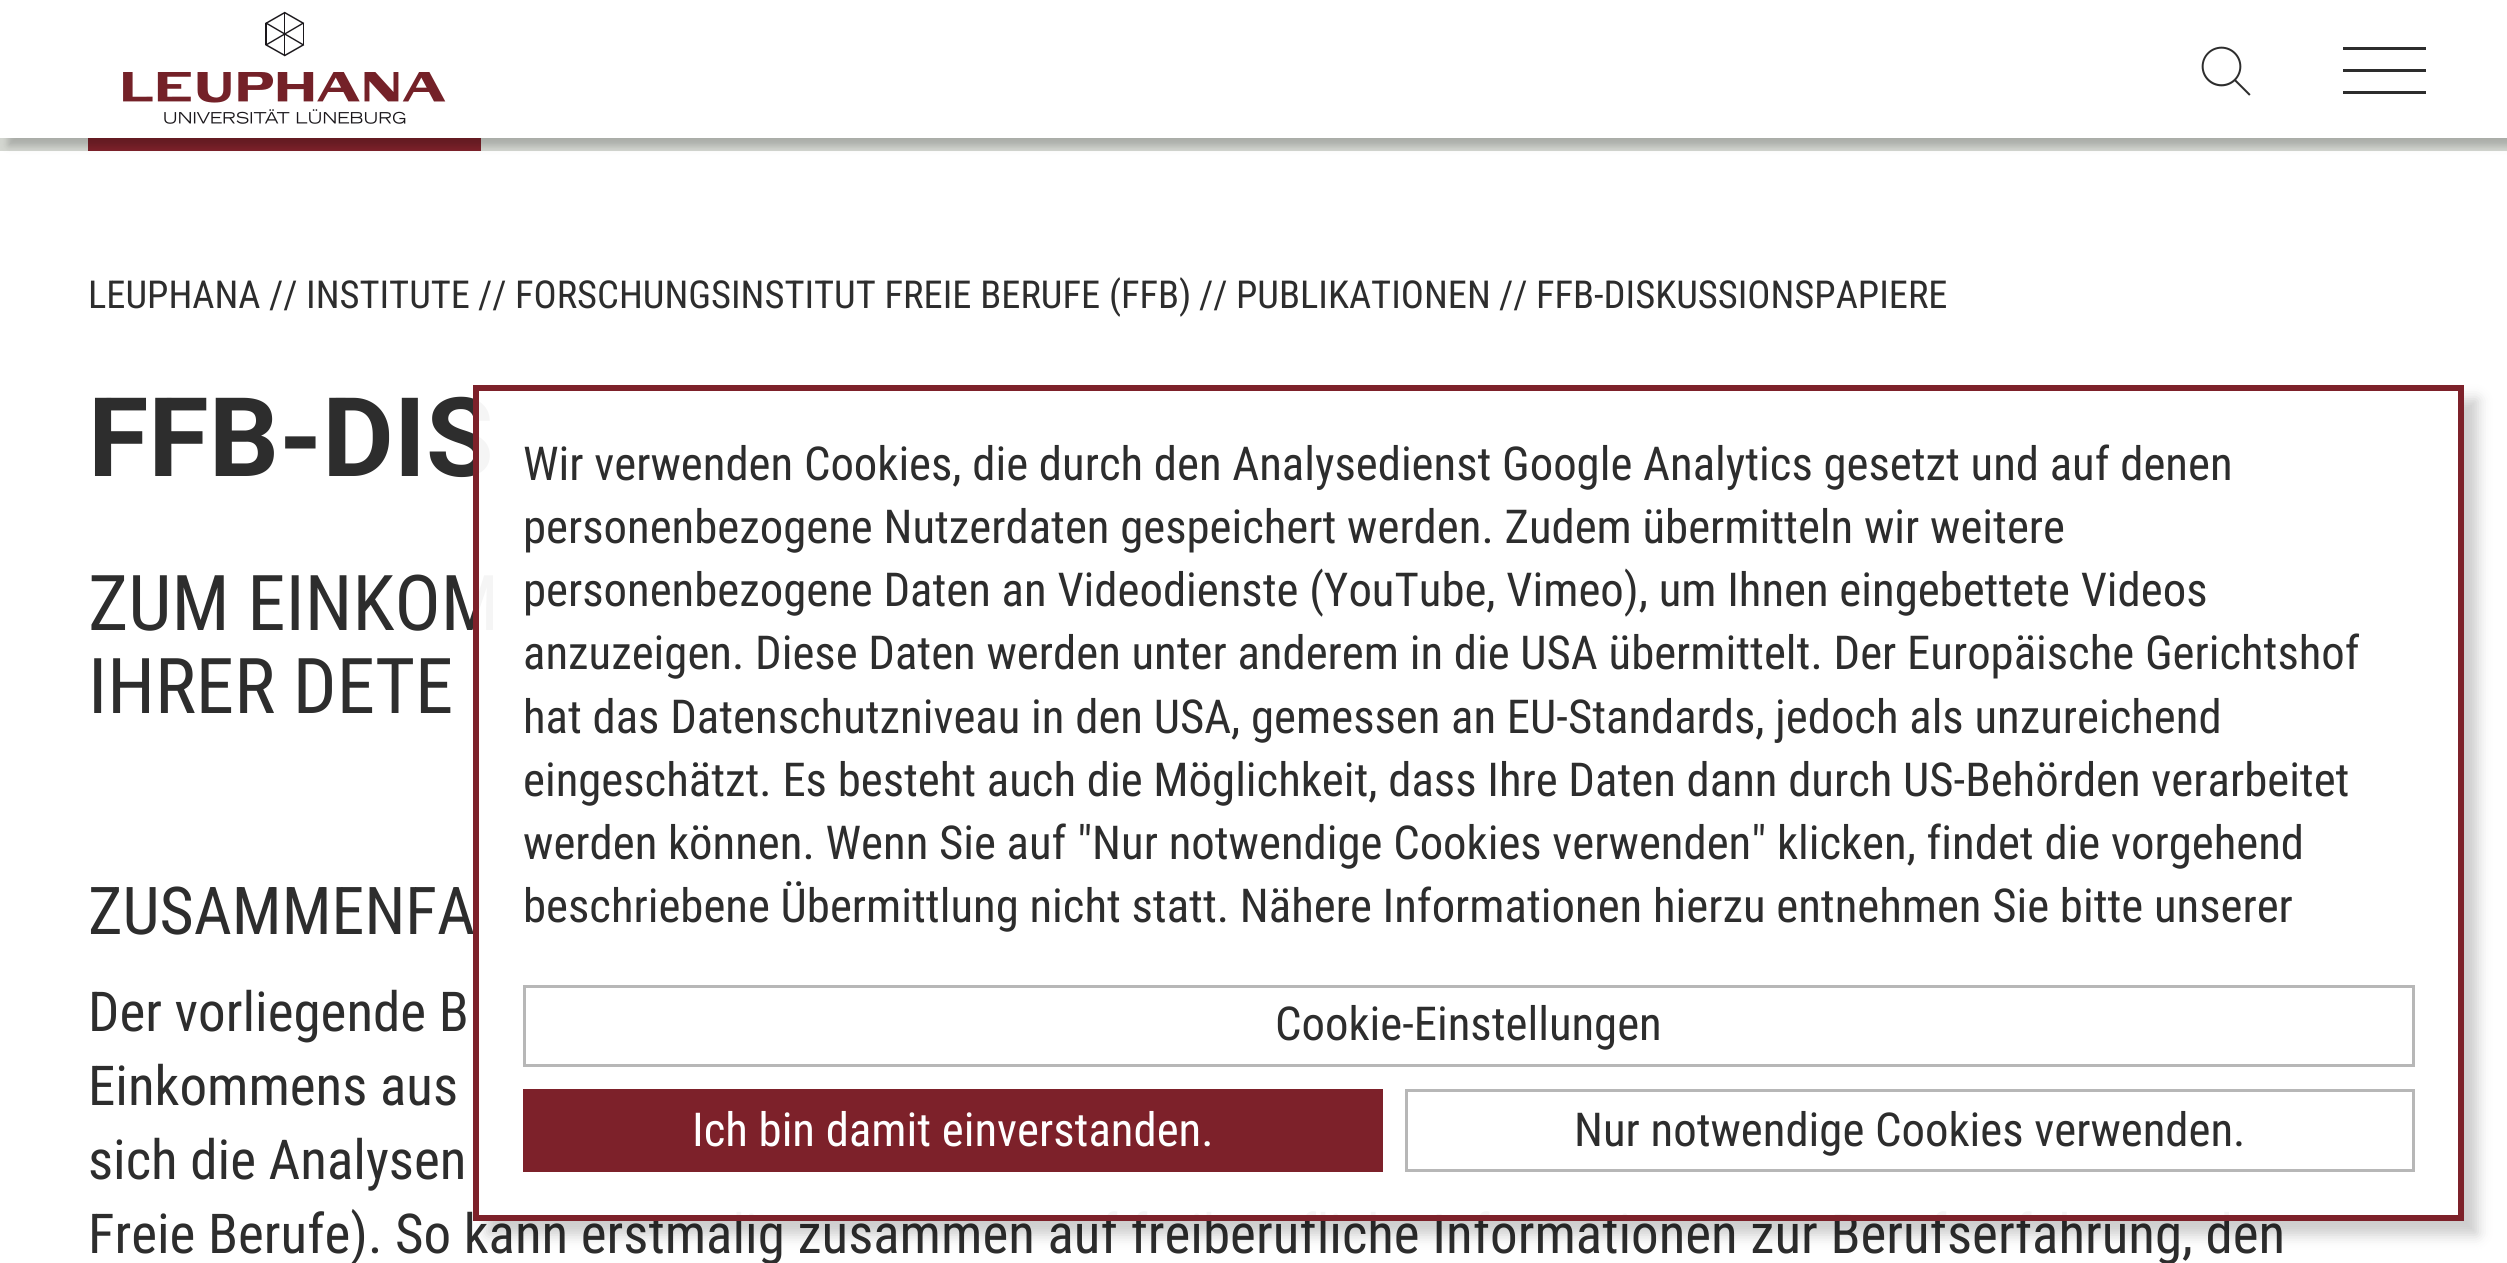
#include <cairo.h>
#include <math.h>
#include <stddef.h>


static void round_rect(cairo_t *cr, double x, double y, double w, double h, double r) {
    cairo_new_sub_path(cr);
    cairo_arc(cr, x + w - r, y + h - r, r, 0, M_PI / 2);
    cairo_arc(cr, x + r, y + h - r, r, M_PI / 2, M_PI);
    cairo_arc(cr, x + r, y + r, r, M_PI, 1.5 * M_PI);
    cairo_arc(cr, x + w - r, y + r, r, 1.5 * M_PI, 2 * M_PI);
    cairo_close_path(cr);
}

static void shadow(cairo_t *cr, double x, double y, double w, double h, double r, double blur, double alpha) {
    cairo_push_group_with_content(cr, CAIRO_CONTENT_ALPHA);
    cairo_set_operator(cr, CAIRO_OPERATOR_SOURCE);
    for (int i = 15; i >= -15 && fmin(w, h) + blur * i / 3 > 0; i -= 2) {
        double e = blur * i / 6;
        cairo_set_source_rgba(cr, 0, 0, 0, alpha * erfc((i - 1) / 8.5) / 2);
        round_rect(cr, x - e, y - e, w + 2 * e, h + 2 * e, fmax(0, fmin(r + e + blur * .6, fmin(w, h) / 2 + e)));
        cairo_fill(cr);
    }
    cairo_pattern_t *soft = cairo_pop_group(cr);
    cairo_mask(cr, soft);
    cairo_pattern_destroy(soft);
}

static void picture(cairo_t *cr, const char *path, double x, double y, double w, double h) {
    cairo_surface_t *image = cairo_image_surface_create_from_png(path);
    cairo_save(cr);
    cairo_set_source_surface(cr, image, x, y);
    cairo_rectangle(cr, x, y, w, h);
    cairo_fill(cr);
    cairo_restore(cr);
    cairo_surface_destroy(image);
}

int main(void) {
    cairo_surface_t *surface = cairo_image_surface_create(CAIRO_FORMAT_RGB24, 2507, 1263);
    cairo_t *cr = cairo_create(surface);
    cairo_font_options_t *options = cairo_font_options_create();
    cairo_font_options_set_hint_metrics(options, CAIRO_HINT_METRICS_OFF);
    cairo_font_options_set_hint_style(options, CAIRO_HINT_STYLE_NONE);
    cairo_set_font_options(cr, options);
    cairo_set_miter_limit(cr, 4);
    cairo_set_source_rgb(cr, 0.831, 0.843, 0.82);
    cairo_paint(cr);
    cairo_set_source_rgb(cr, 1, 1, 1);
    cairo_rectangle(cr, 0, 0, 2507, 138);
    cairo_fill(cr);
    picture(cr, "img1.png", 123, 11, 323, 113);
    cairo_set_source_rgb(cr, 0.49, 0.129, 0.165);
    cairo_rectangle(cr, 88, 138, 393, 13);
    cairo_fill(cr);
    picture(cr, "img2.png", 2201, 46, 50, 50);
    cairo_set_source_rgb(cr, 0.176, 0.176, 0.176);
    cairo_rectangle(cr, 2343, 69, 83, 3);
    cairo_fill(cr);
    cairo_rectangle(cr, 2343, 47, 83, 3);
    cairo_fill(cr);
    cairo_rectangle(cr, 2343, 91, 83, 3);
    cairo_fill(cr);
    cairo_set_source_rgb(cr, 1, 1, 1);
    cairo_rectangle(cr, 0, 151, 2507, 1112);
    cairo_fill(cr);
    cairo_save(cr);
    cairo_set_fill_rule(cr, CAIRO_FILL_RULE_EVEN_ODD);
    cairo_new_path(cr);
    cairo_move_to(cr, 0, 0);
    cairo_line_to(cr, 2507, 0);
    cairo_line_to(cr, 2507, 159);
    cairo_line_to(cr, 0, 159);
    cairo_close_path(cr);
    cairo_move_to(cr, 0, -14);
    cairo_line_to(cr, 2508, -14);
    cairo_line_to(cr, 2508, 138);
    cairo_line_to(cr, 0, 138);
    cairo_close_path(cr);
    cairo_clip(cr);
    cairo_set_source_rgb(cr, 0, 0, 0);
    shadow(cr, 8, -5, 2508, 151, 0, 4, 0.2);
    cairo_restore(cr);
    cairo_select_font_face(cr, "Roboto Condensed", CAIRO_FONT_SLANT_NORMAL, CAIRO_FONT_WEIGHT_NORMAL);
    cairo_set_font_size(cr, 38.5);
    cairo_set_source_rgb(cr, 0.176, 0.176, 0.176);
    cairo_move_to(cr, 88, 308);
    cairo_show_text(cr, "LEUPHANA");
    cairo_move_to(cr, 269, 308);
    cairo_show_text(cr, "//");
    cairo_move_to(cr, 306, 308);
    cairo_show_text(cr, "INSTITUTE");
    cairo_move_to(cr, 478, 308);
    cairo_show_text(cr, "//");
    cairo_move_to(cr, 515, 308);
    cairo_show_text(cr, "FORSCHUNGSINSTITUT FREIE BERUFE (FFB)");
    cairo_move_to(cr, 1199, 308);
    cairo_show_text(cr, "//");
    cairo_move_to(cr, 1236, 308);
    cairo_show_text(cr, "PUBLIKATIONEN");
    cairo_move_to(cr, 1499, 308);
    cairo_show_text(cr, "//");
    cairo_move_to(cr, 1536, 308);
    cairo_show_text(cr, "FFB-DISKUSSIONSPAPIERE");
    cairo_select_font_face(cr, "Roboto", CAIRO_FONT_SLANT_NORMAL, CAIRO_FONT_WEIGHT_BOLD);
    cairo_set_font_size(cr, 110);
    cairo_move_to(cr, 88, 476);
    cairo_show_text(cr, "FFB-DIS");
    cairo_select_font_face(cr, "Roboto Condensed", CAIRO_FONT_SLANT_NORMAL, CAIRO_FONT_WEIGHT_NORMAL);
    cairo_set_font_size(cr, 77);
    cairo_move_to(cr, 88, 630);
    cairo_show_text(cr, "ZUM EINKOM");
    cairo_move_to(cr, 88, 713);
    cairo_show_text(cr, "IHRER DETE");
    cairo_set_font_size(cr, 66);
    cairo_move_to(cr, 88, 934);
    cairo_show_text(cr, "ZUSAMMENFA");
    cairo_set_font_size(cr, 55);
    cairo_move_to(cr, 88, 1031);
    cairo_show_text(cr, "Der vorliegende B");
    cairo_move_to(cr, 88, 1105);
    cairo_show_text(cr, "Einkommens aus");
    cairo_move_to(cr, 88, 1179);
    cairo_show_text(cr, "sich die Analysen");
    cairo_move_to(cr, 88, 1253);
    cairo_show_text(cr, "Freie Berufe). So kann erstmalig zusammen auf freiberufliche Informationen zur Berufserfahrung, den");
    cairo_save(cr);
    cairo_set_fill_rule(cr, CAIRO_FILL_RULE_EVEN_ODD);
    cairo_new_path(cr);
    cairo_move_to(cr, 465, 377);
    cairo_line_to(cr, 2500, 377);
    cairo_line_to(cr, 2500, 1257);
    cairo_line_to(cr, 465, 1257);
    cairo_close_path(cr);
    cairo_move_to(cr, 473, 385);
    cairo_line_to(cr, 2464, 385);
    cairo_line_to(cr, 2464, 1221);
    cairo_line_to(cr, 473, 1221);
    cairo_close_path(cr);
    cairo_clip(cr);
    cairo_set_source_rgb(cr, 0, 0, 0);
    shadow(cr, 487, 399, 1991, 836, 0, 7, 0.2);
    cairo_restore(cr);
    cairo_set_source_rgba(cr, 1, 1, 1, 0.95);
    cairo_rectangle(cr, 479, 401, 1751, 814);
    cairo_fill(cr);
    cairo_rectangle(cr, 476, 388, 1985, 830);
    cairo_set_source_rgb(cr, 0.49, 0.129, 0.165);
    cairo_set_line_width(cr, 6);
    cairo_stroke(cr);
    cairo_set_font_size(cr, 46.75);
    cairo_set_source_rgb(cr, 0.176, 0.176, 0.176);
    cairo_move_to(cr, 523, 480);
    cairo_show_text(cr, "Wir verwenden Cookies, die durch den Analysedienst Google Analytics gesetzt und auf denen");
    cairo_move_to(cr, 523, 543);
    cairo_show_text(cr, "personenbezogene Nutzerdaten gespeichert werden. Zudem übermitteln wir weitere");
    cairo_move_to(cr, 523, 606);
    cairo_show_text(cr, "personenbezogene Daten an Videodienste (YouTube, Vimeo), um Ihnen eingebettete Videos");
    cairo_move_to(cr, 523, 669);
    cairo_show_text(cr, "anzuzeigen. Diese Daten werden unter anderem in die USA übermittelt. Der Europäische Gerichtshof");
    cairo_move_to(cr, 523, 733);
    cairo_show_text(cr, "hat das Datenschutzniveau in den USA, gemessen an EU-Standards, jedoch als unzureichend");
    cairo_move_to(cr, 523, 796);
    cairo_show_text(cr, "eingeschätzt. Es besteht auch die Möglichkeit, dass Ihre Daten dann durch US-Behörden verarbeitet");
    cairo_move_to(cr, 523, 859);
    cairo_show_text(cr, "werden können. Wenn Sie auf \"Nur notwendige Cookies verwenden\" klicken, findet die vorgehend");
    cairo_move_to(cr, 523, 922);
    cairo_show_text(cr, "beschriebene Übermittlung nicht statt. Nähere Informationen hierzu entnehmen Sie bitte unserer");
    cairo_rectangle(cr, 524.5, 986.5, 1889, 79);
    cairo_set_source_rgb(cr, 0.718, 0.718, 0.718);
    cairo_set_line_width(cr, 3);
    cairo_stroke(cr);
    cairo_set_source_rgb(cr, 0.176, 0.176, 0.176);
    cairo_move_to(cr, 1275, 1040);
    cairo_show_text(cr, "Cookie-Einstellungen");
    cairo_set_source_rgb(cr, 0.49, 0.129, 0.165);
    cairo_rectangle(cr, 523, 1089, 860, 83);
    cairo_fill(cr);
    cairo_set_source_rgb(cr, 1, 1, 1);
    cairo_move_to(cr, 692, 1146);
    cairo_show_text(cr, "Ich bin damit einverstanden.");
    cairo_rectangle(cr, 1406.5, 1090.5, 1007, 80);
    cairo_set_source_rgb(cr, 0.718, 0.718, 0.718);
    cairo_stroke(cr);
    cairo_set_source_rgb(cr, 0.176, 0.176, 0.176);
    cairo_move_to(cr, 1574, 1146);
    cairo_show_text(cr, "Nur notwendige Cookies verwenden.");
    cairo_surface_write_to_png(surface, "page.png");
    cairo_font_options_destroy(options);
    cairo_destroy(cr);
    cairo_surface_destroy(surface);
    return 0;
}
